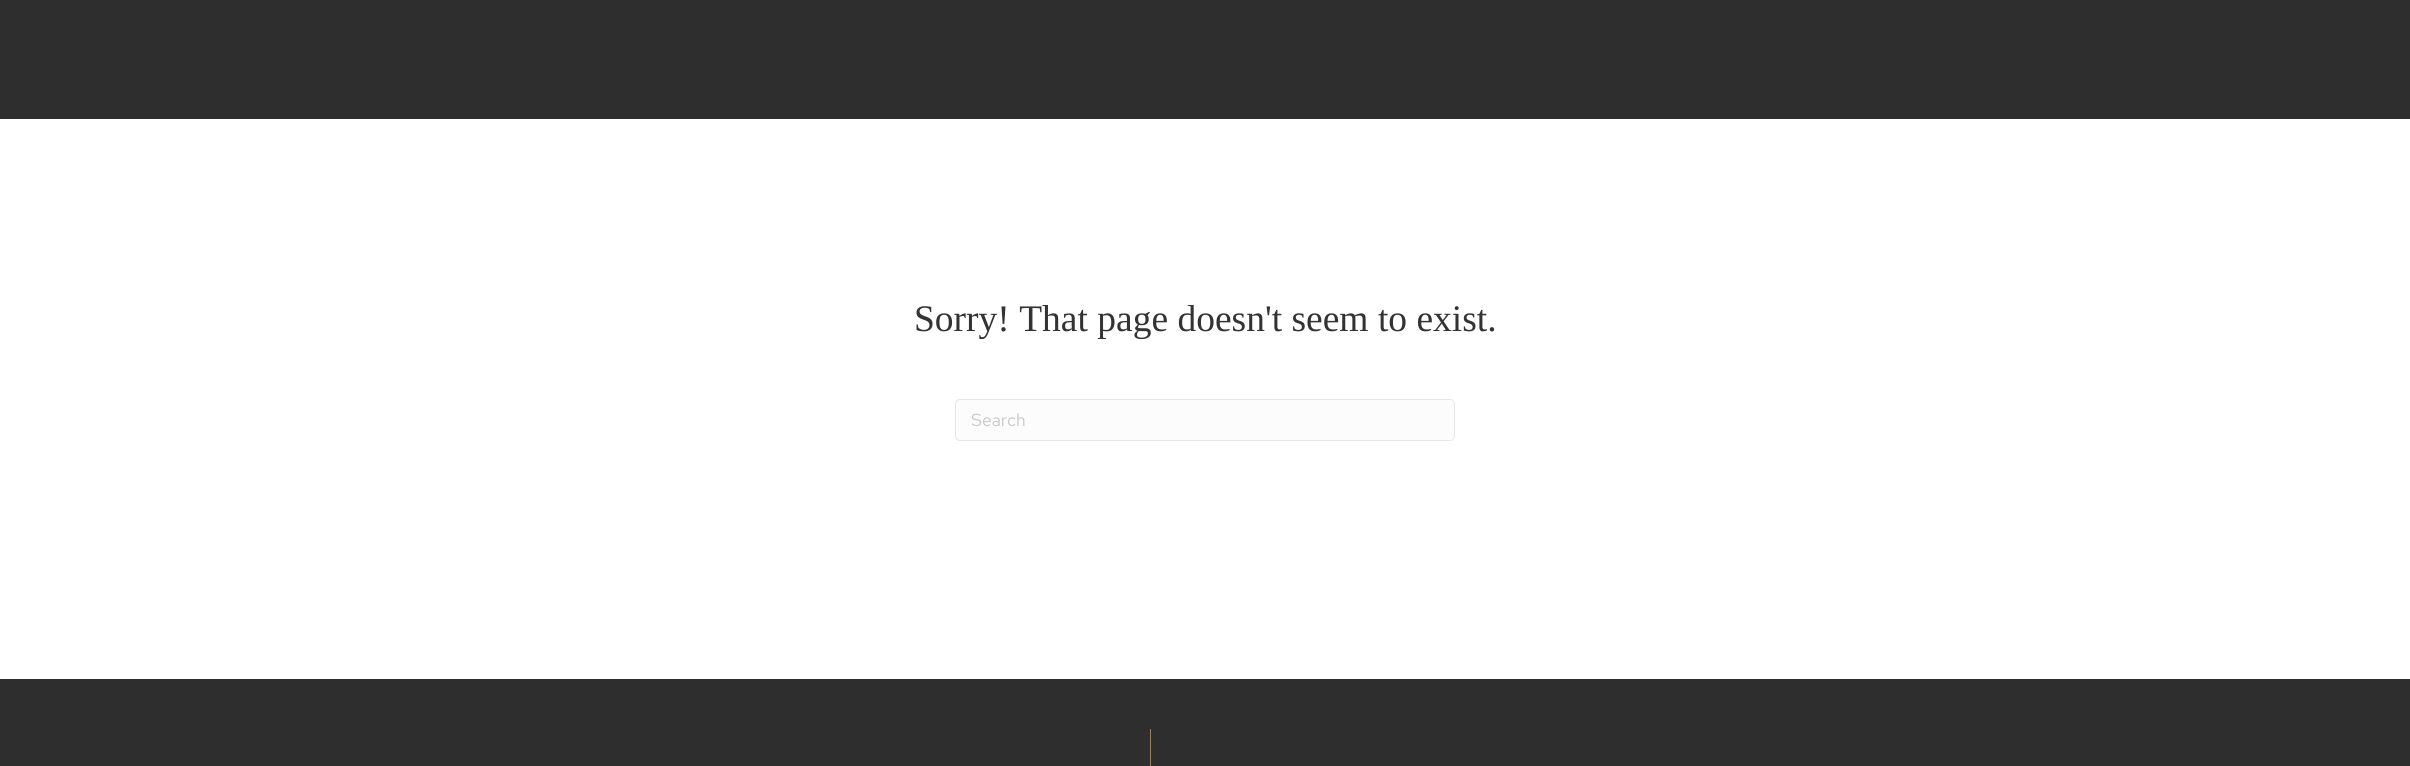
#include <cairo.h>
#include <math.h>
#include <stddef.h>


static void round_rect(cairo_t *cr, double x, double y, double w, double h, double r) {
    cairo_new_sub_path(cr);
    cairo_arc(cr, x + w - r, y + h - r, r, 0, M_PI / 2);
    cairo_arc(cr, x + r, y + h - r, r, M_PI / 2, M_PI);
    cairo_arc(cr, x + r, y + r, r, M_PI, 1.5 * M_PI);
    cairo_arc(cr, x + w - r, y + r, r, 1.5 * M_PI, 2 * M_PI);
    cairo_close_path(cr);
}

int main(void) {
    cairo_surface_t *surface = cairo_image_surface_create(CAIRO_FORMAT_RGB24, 2410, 766);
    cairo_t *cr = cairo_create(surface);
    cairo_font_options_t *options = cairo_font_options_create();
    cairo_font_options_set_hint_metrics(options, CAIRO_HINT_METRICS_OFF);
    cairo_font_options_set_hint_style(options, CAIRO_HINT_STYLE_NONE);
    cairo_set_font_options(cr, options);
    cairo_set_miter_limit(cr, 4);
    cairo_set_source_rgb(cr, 1, 1, 1);
    cairo_paint(cr);
    cairo_set_source_rgb(cr, 0.176, 0.18, 0.176);
    cairo_rectangle(cr, 0, 0, 2410, 119);
    cairo_fill(cr);
    cairo_select_font_face(cr, "Liberation Serif", CAIRO_FONT_SLANT_NORMAL, CAIRO_FONT_WEIGHT_NORMAL);
    cairo_set_font_size(cr, 37.5);
    cairo_set_source_rgb(cr, 0.2, 0.2, 0.2);
    cairo_move_to(cr, 914, 331);
    cairo_show_text(cr, "Sorry! That page doesn't seem to exist.");
    cairo_set_source_rgb(cr, 0.988, 0.988, 0.988);
    round_rect(cr, 955.5, 399.5, 499, 41, 4.5);
    cairo_fill_preserve(cr);
    cairo_set_source_rgb(cr, 0.902, 0.902, 0.902);
    cairo_set_line_width(cr, 1);
    cairo_stroke(cr);
    cairo_select_font_face(cr, "Red Hat Text", CAIRO_FONT_SLANT_NORMAL, CAIRO_FONT_WEIGHT_NORMAL);
    cairo_set_font_size(cr, 17.5);
    cairo_set_source_rgb(cr, 0.78, 0.784, 0.784);
    cairo_move_to(cr, 971, 426);
    cairo_show_text(cr, "Search");
    cairo_set_source_rgb(cr, 0.176, 0.18, 0.176);
    cairo_rectangle(cr, 0, 679, 2410, 87);
    cairo_fill(cr);
    cairo_set_source_rgb(cr, 0.635, 0.506, 0.243);
    cairo_rectangle(cr, 1150, 729, 1, 37);
    cairo_fill(cr);
    cairo_surface_write_to_png(surface, "page.png");
    cairo_font_options_destroy(options);
    cairo_destroy(cr);
    cairo_surface_destroy(surface);
    return 0;
}
